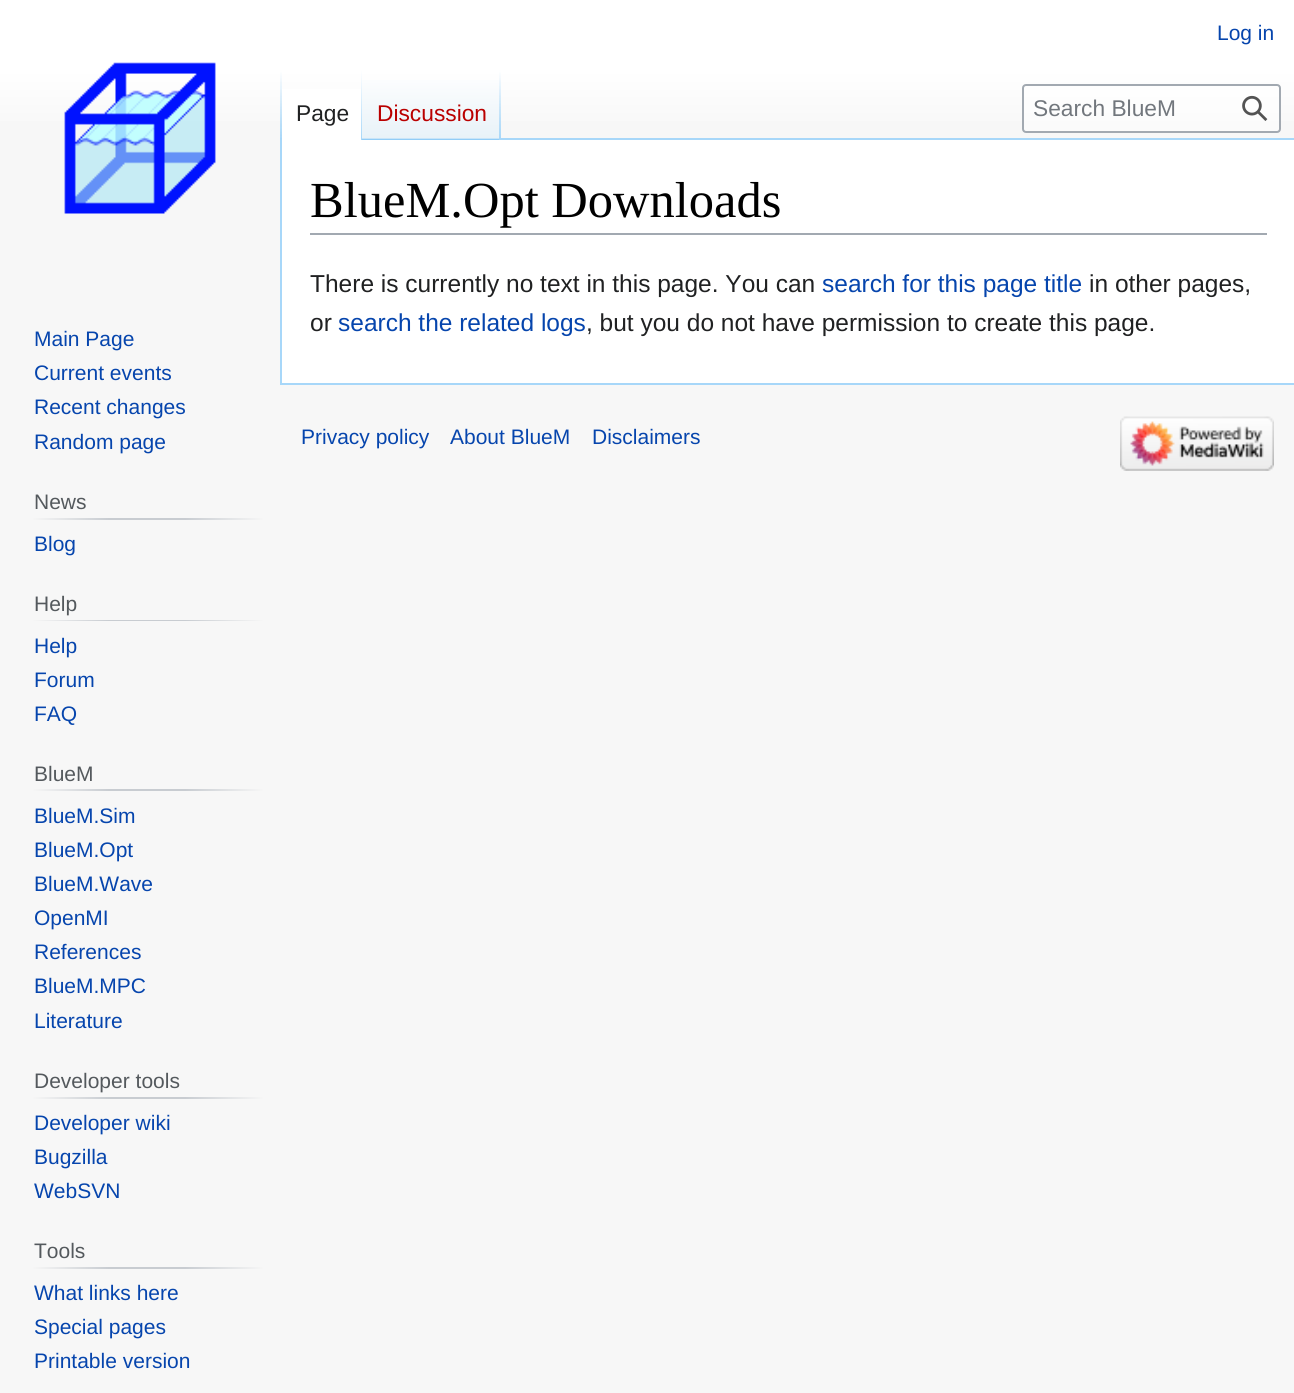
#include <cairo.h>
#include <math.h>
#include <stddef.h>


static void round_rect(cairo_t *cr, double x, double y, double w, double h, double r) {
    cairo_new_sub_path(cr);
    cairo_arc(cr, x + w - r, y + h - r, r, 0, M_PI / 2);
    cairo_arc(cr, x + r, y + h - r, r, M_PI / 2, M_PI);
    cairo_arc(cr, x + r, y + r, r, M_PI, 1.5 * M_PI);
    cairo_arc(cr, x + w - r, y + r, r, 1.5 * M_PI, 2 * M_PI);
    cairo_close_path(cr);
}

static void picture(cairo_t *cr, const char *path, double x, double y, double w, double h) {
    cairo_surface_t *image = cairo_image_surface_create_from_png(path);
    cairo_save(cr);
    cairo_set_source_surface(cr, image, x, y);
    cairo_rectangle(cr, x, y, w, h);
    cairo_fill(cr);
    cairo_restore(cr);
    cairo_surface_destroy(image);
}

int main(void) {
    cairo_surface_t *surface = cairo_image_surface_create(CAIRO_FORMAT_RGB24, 1294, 1393);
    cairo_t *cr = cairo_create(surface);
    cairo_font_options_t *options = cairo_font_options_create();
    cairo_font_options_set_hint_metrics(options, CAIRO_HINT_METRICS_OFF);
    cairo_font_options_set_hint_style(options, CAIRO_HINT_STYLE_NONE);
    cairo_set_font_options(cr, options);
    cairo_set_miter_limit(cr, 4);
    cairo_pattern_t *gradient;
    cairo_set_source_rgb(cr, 0.965, 0.965, 0.965);
    cairo_paint(cr);
    gradient = cairo_pattern_create_linear(648, 0, 648, 140);
    cairo_pattern_add_color_stop_rgba(gradient, 0.5, 1, 1, 1, 1);
    cairo_pattern_add_color_stop_rgba(gradient, 1, 0.965, 0.965, 0.965, 1);
    cairo_set_source(cr, gradient);
    cairo_pattern_destroy(gradient);
    cairo_rectangle(cr, 0, 0, 1294, 121);
    cairo_fill(cr);
    cairo_select_font_face(cr, "Liberation Sans", CAIRO_FONT_SLANT_NORMAL, CAIRO_FONT_WEIGHT_NORMAL);
    cairo_set_font_size(cr, 21);
    cairo_set_source_rgb(cr, 0.024, 0.271, 0.678);
    cairo_move_to(cr, 1217, 40);
    cairo_show_text(cr, "Log in");
    cairo_set_source_rgb(cr, 0.655, 0.843, 0.976);
    cairo_rectangle(cr, 280, 383, 1014, 2);
    cairo_fill(cr);
    cairo_rectangle(cr, 280, 138, 2, 247);
    cairo_fill(cr);
    gradient = cairo_pattern_create_linear(281, 70, 281, 140);
    cairo_pattern_add_color_stop_rgba(gradient, 0, 0.655, 0.843, 0.976, 0);
    cairo_pattern_add_color_stop_rgba(gradient, 1, 0.655, 0.843, 0.976, 1);
    cairo_set_source(cr, gradient);
    cairo_pattern_destroy(gradient);
    cairo_rectangle(cr, 280, 70, 2, 70);
    cairo_fill(cr);
    cairo_set_source_rgb(cr, 1, 1, 1);
    cairo_rectangle(cr, 282, 89, 79, 51);
    cairo_fill(cr);
    gradient = cairo_pattern_create_linear(361, 70, 361, 140);
    cairo_pattern_add_color_stop_rgba(gradient, 0, 1, 1, 1, 1);
    cairo_pattern_add_color_stop_rgba(gradient, 1, 0.655, 0.843, 0.976, 1);
    cairo_set_source(cr, gradient);
    cairo_pattern_destroy(gradient);
    cairo_rectangle(cr, 361, 70, 1, 70);
    cairo_fill(cr);
    cairo_set_font_size(cr, 22.75);
    cairo_set_source_rgb(cr, 0.125, 0.129, 0.133);
    cairo_move_to(cr, 296, 121);
    cairo_show_text(cr, "Page");
    gradient = cairo_pattern_create_linear(431, 140, 431, 70);
    cairo_pattern_add_color_stop_rgba(gradient, 0, 0.467, 0.757, 0.965, 1);
    cairo_pattern_add_color_stop_rgba(gradient, 0.03, 0.91, 0.949, 0.973, 1);
    cairo_pattern_add_color_stop_rgba(gradient, 1, 1, 1, 1, 1);
    cairo_set_source(cr, gradient);
    cairo_pattern_destroy(gradient);
    cairo_rectangle(cr, 362, 80, 139, 60);
    cairo_fill(cr);
    gradient = cairo_pattern_create_linear(500, 70, 500, 140);
    cairo_pattern_add_color_stop_rgba(gradient, 0, 0.655, 0.843, 0.976, 0);
    cairo_pattern_add_color_stop_rgba(gradient, 1, 0.655, 0.843, 0.976, 1);
    cairo_set_source(cr, gradient);
    cairo_pattern_destroy(gradient);
    cairo_rectangle(cr, 499, 70, 2, 70);
    cairo_fill(cr);
    cairo_set_source_rgb(cr, 0.729, 0, 0);
    cairo_move_to(cr, 377, 121);
    cairo_show_text(cr, "Discussion");
    cairo_set_source_rgba(cr, 1, 1, 1, 0.5);
    round_rect(cr, 1023, 85, 257, 47, 3);
    cairo_fill_preserve(cr);
    cairo_set_source_rgb(cr, 0.635, 0.663, 0.694);
    cairo_stroke(cr);
    cairo_set_source_rgb(cr, 0.447, 0.467, 0.49);
    cairo_move_to(cr, 1033, 116);
    cairo_show_text(cr, "Search BlueM");
    picture(cr, "img1.png", 1242, 95, 26, 26);
    picture(cr, "img2.png", 64, 62, 152, 152);
    cairo_set_font_size(cr, 21);
    cairo_set_source_rgb(cr, 0.024, 0.271, 0.678);
    cairo_move_to(cr, 34, 346);
    cairo_show_text(cr, "Main Page");
    cairo_move_to(cr, 34, 380);
    cairo_show_text(cr, "Current events");
    cairo_move_to(cr, 34, 414);
    cairo_show_text(cr, "Recent changes");
    cairo_move_to(cr, 34, 449);
    cairo_show_text(cr, "Random page");
    gradient = cairo_pattern_create_linear(33, 519, 263, 519);
    cairo_pattern_add_color_stop_rgba(gradient, 0, 0.965, 0.965, 0.965, 1);
    cairo_pattern_add_color_stop_rgba(gradient, 0.33, 0.784, 0.8, 0.82, 1);
    cairo_pattern_add_color_stop_rgba(gradient, 0.66, 0.784, 0.8, 0.82, 1);
    cairo_pattern_add_color_stop_rgba(gradient, 1, 0.965, 0.965, 0.965, 1);
    cairo_set_source(cr, gradient);
    cairo_pattern_destroy(gradient);
    cairo_rectangle(cr, 33, 518, 230, 2);
    cairo_fill(cr);
    cairo_set_source_rgb(cr, 0.329, 0.349, 0.365);
    cairo_move_to(cr, 34, 509);
    cairo_show_text(cr, "News");
    cairo_set_source_rgb(cr, 0.024, 0.271, 0.678);
    cairo_move_to(cr, 34, 551);
    cairo_show_text(cr, "Blog");
    gradient = cairo_pattern_create_linear(33, 620, 263, 620);
    cairo_pattern_add_color_stop_rgba(gradient, 0, 0.965, 0.965, 0.965, 1);
    cairo_pattern_add_color_stop_rgba(gradient, 0.33, 0.784, 0.8, 0.82, 1);
    cairo_pattern_add_color_stop_rgba(gradient, 0.66, 0.784, 0.8, 0.82, 1);
    cairo_pattern_add_color_stop_rgba(gradient, 1, 0.965, 0.965, 0.965, 1);
    cairo_set_source(cr, gradient);
    cairo_pattern_destroy(gradient);
    cairo_rectangle(cr, 33, 620, 230, 1);
    cairo_fill(cr);
    cairo_set_source_rgb(cr, 0.329, 0.349, 0.365);
    cairo_move_to(cr, 34, 611);
    cairo_show_text(cr, "Help");
    cairo_set_source_rgb(cr, 0.024, 0.271, 0.678);
    cairo_move_to(cr, 34, 653);
    cairo_show_text(cr, "Help");
    cairo_move_to(cr, 34, 687);
    cairo_show_text(cr, "Forum");
    cairo_move_to(cr, 34, 721);
    cairo_show_text(cr, "FAQ");
    gradient = cairo_pattern_create_linear(33, 790, 263, 790);
    cairo_pattern_add_color_stop_rgba(gradient, 0, 0.965, 0.965, 0.965, 1);
    cairo_pattern_add_color_stop_rgba(gradient, 0.33, 0.784, 0.8, 0.82, 1);
    cairo_pattern_add_color_stop_rgba(gradient, 0.66, 0.784, 0.8, 0.82, 1);
    cairo_pattern_add_color_stop_rgba(gradient, 1, 0.965, 0.965, 0.965, 1);
    cairo_set_source(cr, gradient);
    cairo_pattern_destroy(gradient);
    cairo_rectangle(cr, 33, 789, 230, 2);
    cairo_fill(cr);
    cairo_set_source_rgb(cr, 0.329, 0.349, 0.365);
    cairo_move_to(cr, 34, 781);
    cairo_show_text(cr, "BlueM");
    cairo_set_source_rgb(cr, 0.024, 0.271, 0.678);
    cairo_move_to(cr, 34, 823);
    cairo_show_text(cr, "BlueM.Sim");
    cairo_move_to(cr, 34, 857);
    cairo_show_text(cr, "BlueM.Opt");
    cairo_move_to(cr, 34, 891);
    cairo_show_text(cr, "BlueM.Wave");
    cairo_move_to(cr, 34, 925);
    cairo_show_text(cr, "OpenMI");
    cairo_move_to(cr, 34, 959);
    cairo_show_text(cr, "References");
    cairo_move_to(cr, 34, 993);
    cairo_show_text(cr, "BlueM.MPC");
    cairo_move_to(cr, 34, 1028);
    cairo_show_text(cr, "Literature");
    gradient = cairo_pattern_create_linear(33, 1098, 263, 1098);
    cairo_pattern_add_color_stop_rgba(gradient, 0, 0.965, 0.965, 0.965, 1);
    cairo_pattern_add_color_stop_rgba(gradient, 0.33, 0.784, 0.8, 0.82, 1);
    cairo_pattern_add_color_stop_rgba(gradient, 0.66, 0.784, 0.8, 0.82, 1);
    cairo_pattern_add_color_stop_rgba(gradient, 1, 0.965, 0.965, 0.965, 1);
    cairo_set_source(cr, gradient);
    cairo_pattern_destroy(gradient);
    cairo_rectangle(cr, 33, 1097, 230, 2);
    cairo_fill(cr);
    cairo_set_source_rgb(cr, 0.329, 0.349, 0.365);
    cairo_move_to(cr, 34, 1088);
    cairo_show_text(cr, "Developer tools");
    cairo_set_source_rgb(cr, 0.024, 0.271, 0.678);
    cairo_move_to(cr, 34, 1130);
    cairo_show_text(cr, "Developer wiki");
    cairo_move_to(cr, 34, 1164);
    cairo_show_text(cr, "Bugzilla");
    cairo_move_to(cr, 34, 1198);
    cairo_show_text(cr, "WebSVN");
    gradient = cairo_pattern_create_linear(33, 1268, 263, 1268);
    cairo_pattern_add_color_stop_rgba(gradient, 0, 0.965, 0.965, 0.965, 1);
    cairo_pattern_add_color_stop_rgba(gradient, 0.33, 0.784, 0.8, 0.82, 1);
    cairo_pattern_add_color_stop_rgba(gradient, 0.66, 0.784, 0.8, 0.82, 1);
    cairo_pattern_add_color_stop_rgba(gradient, 1, 0.965, 0.965, 0.965, 1);
    cairo_set_source(cr, gradient);
    cairo_pattern_destroy(gradient);
    cairo_rectangle(cr, 33, 1267, 230, 2);
    cairo_fill(cr);
    cairo_set_source_rgb(cr, 0.329, 0.349, 0.365);
    cairo_move_to(cr, 34, 1258);
    cairo_show_text(cr, "Tools");
    cairo_set_source_rgb(cr, 0.024, 0.271, 0.678);
    cairo_move_to(cr, 34, 1300);
    cairo_show_text(cr, "What links here");
    cairo_move_to(cr, 34, 1334);
    cairo_show_text(cr, "Special pages");
    cairo_move_to(cr, 34, 1368);
    cairo_show_text(cr, "Printable version");
    cairo_set_source_rgb(cr, 1, 1, 1);
    cairo_rectangle(cr, 282, 140, 1012, 243);
    cairo_fill(cr);
    cairo_set_source_rgb(cr, 0.655, 0.843, 0.976);
    cairo_rectangle(cr, 501, 138, 793, 2);
    cairo_fill(cr);
    cairo_set_source_rgb(cr, 0.635, 0.663, 0.694);
    cairo_rectangle(cr, 310, 233, 957, 2);
    cairo_fill(cr);
    cairo_select_font_face(cr, "Liberation Serif", CAIRO_FONT_SLANT_NORMAL, CAIRO_FONT_WEIGHT_NORMAL);
    cairo_set_font_size(cr, 50.5);
    cairo_set_source_rgb(cr, 0, 0, 0);
    cairo_move_to(cr, 310, 217);
    cairo_show_text(cr, "BlueM.Opt Downloads");
    cairo_select_font_face(cr, "Liberation Sans", CAIRO_FONT_SLANT_NORMAL, CAIRO_FONT_WEIGHT_NORMAL);
    cairo_set_font_size(cr, 24.5);
    cairo_set_source_rgb(cr, 0.125, 0.129, 0.133);
    cairo_move_to(cr, 310, 292);
    cairo_show_text(cr, "There is currently no text in this page. You can");
    cairo_set_source_rgb(cr, 0.024, 0.271, 0.678);
    cairo_move_to(cr, 822, 292);
    cairo_show_text(cr, "search for this page title");
    cairo_set_source_rgb(cr, 0.125, 0.129, 0.133);
    cairo_move_to(cr, 1089, 292);
    cairo_show_text(cr, "in other pages,");
    cairo_move_to(cr, 310, 331);
    cairo_show_text(cr, "or");
    cairo_set_source_rgb(cr, 0.024, 0.271, 0.678);
    cairo_move_to(cr, 338, 331);
    cairo_show_text(cr, "search the related logs");
    cairo_set_source_rgb(cr, 0.125, 0.129, 0.133);
    cairo_move_to(cr, 586, 331);
    cairo_show_text(cr, ", but you do not have permission to create this page.");
    cairo_set_font_size(cr, 21);
    cairo_set_source_rgb(cr, 0.024, 0.271, 0.678);
    cairo_move_to(cr, 301, 444);
    cairo_show_text(cr, "Privacy policy");
    cairo_move_to(cr, 450, 444);
    cairo_show_text(cr, "About BlueM");
    cairo_move_to(cr, 592, 444);
    cairo_show_text(cr, "Disclaimers");
    picture(cr, "img3.png", 1120, 416, 154, 55);
    cairo_surface_write_to_png(surface, "page.png");
    cairo_font_options_destroy(options);
    cairo_destroy(cr);
    cairo_surface_destroy(surface);
    return 0;
}
